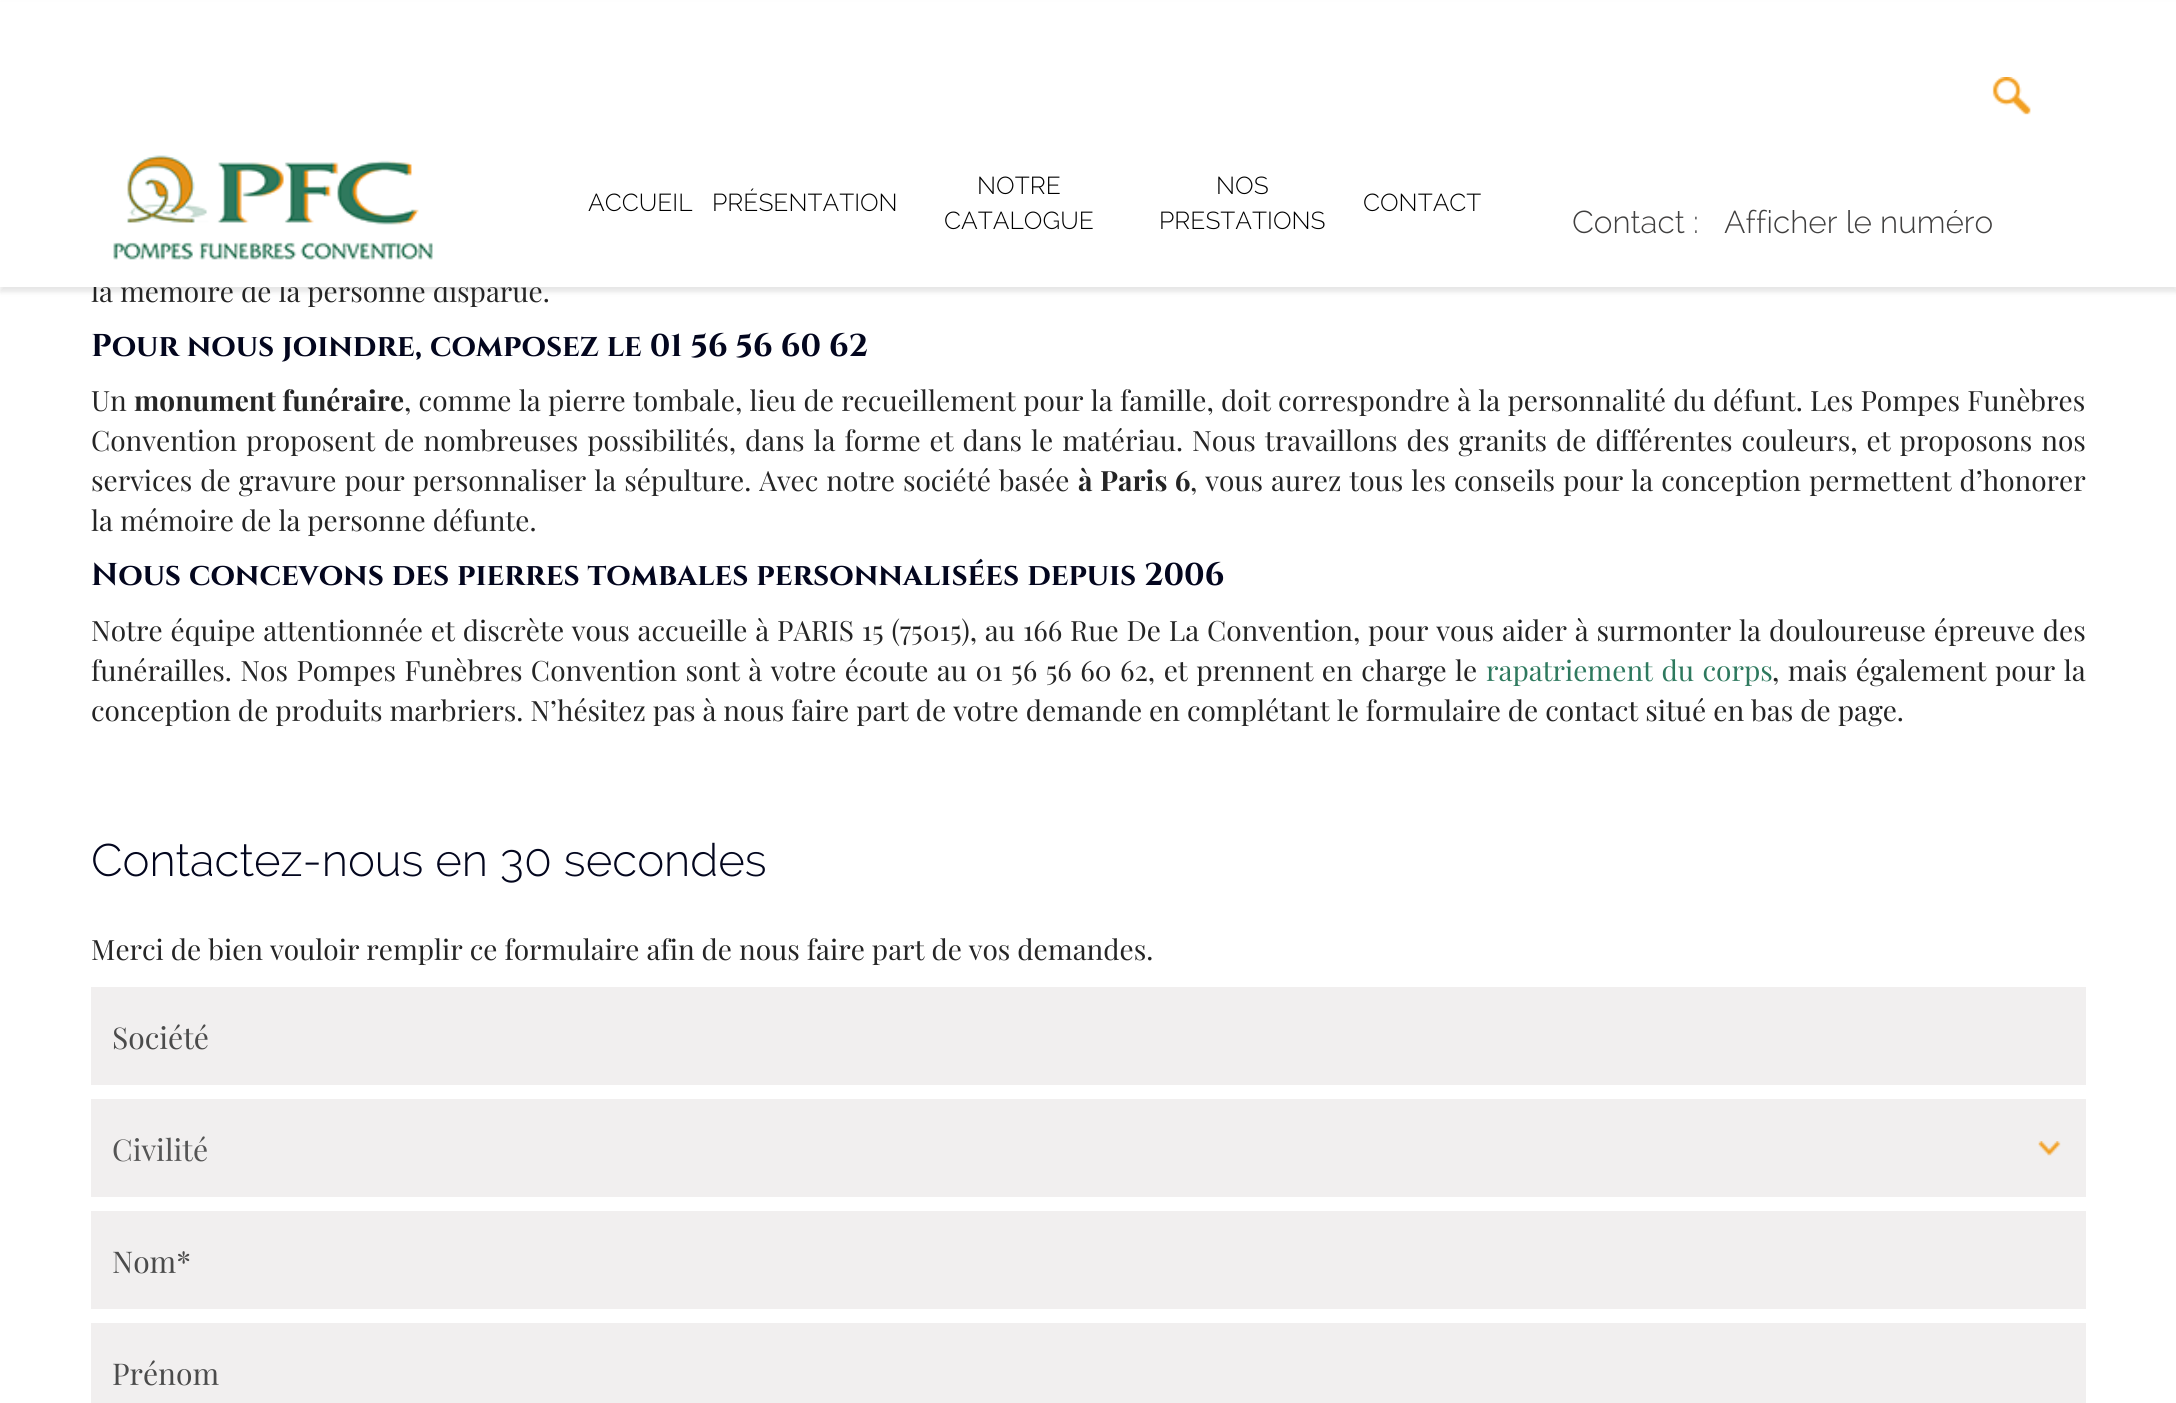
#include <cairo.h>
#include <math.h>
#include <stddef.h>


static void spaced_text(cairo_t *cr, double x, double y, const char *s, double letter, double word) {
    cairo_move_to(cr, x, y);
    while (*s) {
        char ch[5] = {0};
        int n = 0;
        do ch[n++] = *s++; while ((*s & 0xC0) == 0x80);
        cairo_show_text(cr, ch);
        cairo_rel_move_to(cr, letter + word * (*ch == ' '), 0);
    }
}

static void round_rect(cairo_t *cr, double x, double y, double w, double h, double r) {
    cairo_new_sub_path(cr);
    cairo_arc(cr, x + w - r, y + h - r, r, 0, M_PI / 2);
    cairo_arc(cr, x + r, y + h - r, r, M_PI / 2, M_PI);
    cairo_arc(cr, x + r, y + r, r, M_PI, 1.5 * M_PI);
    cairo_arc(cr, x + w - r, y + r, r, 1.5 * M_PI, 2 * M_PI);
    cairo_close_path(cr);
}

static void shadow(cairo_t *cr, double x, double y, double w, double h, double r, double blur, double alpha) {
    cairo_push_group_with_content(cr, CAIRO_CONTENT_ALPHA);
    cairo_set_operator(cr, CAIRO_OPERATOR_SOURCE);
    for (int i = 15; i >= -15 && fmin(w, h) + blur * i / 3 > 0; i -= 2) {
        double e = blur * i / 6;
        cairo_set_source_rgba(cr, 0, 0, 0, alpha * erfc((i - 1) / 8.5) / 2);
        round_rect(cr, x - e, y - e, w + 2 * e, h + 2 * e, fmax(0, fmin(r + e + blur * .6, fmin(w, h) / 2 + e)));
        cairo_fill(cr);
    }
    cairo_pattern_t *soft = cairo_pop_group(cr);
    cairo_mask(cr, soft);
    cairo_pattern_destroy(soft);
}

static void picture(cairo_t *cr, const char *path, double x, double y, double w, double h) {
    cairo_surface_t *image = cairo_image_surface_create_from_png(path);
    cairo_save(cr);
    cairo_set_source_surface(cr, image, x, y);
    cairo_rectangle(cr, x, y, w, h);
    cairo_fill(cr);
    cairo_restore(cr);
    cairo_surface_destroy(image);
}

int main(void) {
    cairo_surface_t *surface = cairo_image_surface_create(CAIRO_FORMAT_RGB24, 2176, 1403);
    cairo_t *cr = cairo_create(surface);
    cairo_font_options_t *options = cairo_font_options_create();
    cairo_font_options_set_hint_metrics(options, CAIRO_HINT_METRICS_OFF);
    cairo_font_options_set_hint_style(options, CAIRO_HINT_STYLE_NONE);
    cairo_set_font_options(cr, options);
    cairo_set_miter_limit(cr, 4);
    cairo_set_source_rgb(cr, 1, 1, 1);
    cairo_paint(cr);
    cairo_set_source_rgb(cr, 0, 0, 0);
    shadow(cr, 0, 5, 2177, 287, 0, 2.5, 0.1);
    cairo_select_font_face(cr, "Playfair Display", CAIRO_FONT_SLANT_NORMAL, CAIRO_FONT_WEIGHT_NORMAL);
    cairo_set_font_size(cr, 28);
    cairo_set_source_rgb(cr, 0.145, 0.145, 0.145);
    cairo_move_to(cr, 91, 302);
    cairo_show_text(cr, "la mémoire de la personne disparue.");
    cairo_set_source_rgb(cr, 1, 1, 1);
    cairo_rectangle(cr, 0, 2, 2176, 285);
    cairo_fill(cr);
    picture(cr, "img1.png", 113, 155, 320, 105);
    cairo_select_font_face(cr, "Raleway Light", CAIRO_FONT_SLANT_NORMAL, CAIRO_FONT_WEIGHT_NORMAL);
    cairo_set_font_size(cr, 24.5);
    cairo_set_source_rgb(cr, 0, 0, 0);
    cairo_move_to(cr, 588, 211);
    cairo_show_text(cr, "ACCUEIL");
    cairo_move_to(cr, 712, 211);
    cairo_show_text(cr, "PRÉSENTATION");
    cairo_move_to(cr, 977, 194);
    cairo_show_text(cr, "NOTRE");
    cairo_move_to(cr, 944, 229);
    cairo_show_text(cr, "CATALOGUE");
    cairo_move_to(cr, 1216, 194);
    cairo_show_text(cr, "NOS");
    cairo_move_to(cr, 1159, 229);
    cairo_show_text(cr, "PRESTATIONS");
    cairo_move_to(cr, 1363, 211);
    cairo_show_text(cr, "CONTACT");
    picture(cr, "img2.png", 1992, 77, 39, 38);
    cairo_set_font_size(cr, 31.5);
    cairo_set_source_rgb(cr, 0.251, 0.247, 0.247);
    cairo_move_to(cr, 1572, 233);
    cairo_show_text(cr, "Contact :");
    cairo_move_to(cr, 1724, 233);
    cairo_show_text(cr, "Afficher le numéro");
    cairo_select_font_face(cr, "Cinzel", CAIRO_FONT_SLANT_NORMAL, CAIRO_FONT_WEIGHT_BOLD);
    cairo_set_source_rgb(cr, 0.012, 0.027, 0.118);
    cairo_move_to(cr, 91, 356);
    cairo_show_text(cr, "Pour nous joindre, composez le 01 56 56 60 62");
    cairo_select_font_face(cr, "Playfair Display", CAIRO_FONT_SLANT_NORMAL, CAIRO_FONT_WEIGHT_NORMAL);
    cairo_set_font_size(cr, 28);
    cairo_set_source_rgb(cr, 0.145, 0.145, 0.145);
    cairo_move_to(cr, 91, 411);
    cairo_show_text(cr, "Un");
    cairo_select_font_face(cr, "Playfair Display", CAIRO_FONT_SLANT_NORMAL, CAIRO_FONT_WEIGHT_BOLD);
    cairo_move_to(cr, 134, 411);
    cairo_show_text(cr, "monument funéraire");
    cairo_select_font_face(cr, "Playfair Display", CAIRO_FONT_SLANT_NORMAL, CAIRO_FONT_WEIGHT_NORMAL);
    spaced_text(cr, 404, 411, ", comme la pierre tombale, lieu de recueillement pour la famille, doit correspondre à la personnalité du défunt. Les Pompes Funèbres", 0, 0.3);
    spaced_text(cr, 91, 451, "Convention proposent de nombreuses possibilités, dans la forme et dans le matériau. Nous travaillons des granits", 0, 2);
    spaced_text(cr, 1556, 451, "de différentes couleurs, et proposons nos", 0, 2);
    spaced_text(cr, 91, 491, "services de gravure pour personnaliser la sépulture. Avec notre société basée", 0, 1);
    cairo_select_font_face(cr, "Playfair Display", CAIRO_FONT_SLANT_NORMAL, CAIRO_FONT_WEIGHT_BOLD);
    spaced_text(cr, 1078, 491, "à Paris 6", 0, 1);
    cairo_select_font_face(cr, "Playfair Display", CAIRO_FONT_SLANT_NORMAL, CAIRO_FONT_WEIGHT_NORMAL);
    spaced_text(cr, 1190, 491, ", vous aurez tous les conseils pour la conception permettent d’honorer", 0, 1);
    cairo_move_to(cr, 91, 531);
    cairo_show_text(cr, "la mémoire de la personne défunte.");
    cairo_select_font_face(cr, "Cinzel", CAIRO_FONT_SLANT_NORMAL, CAIRO_FONT_WEIGHT_BOLD);
    cairo_set_font_size(cr, 31.5);
    cairo_set_source_rgb(cr, 0.012, 0.027, 0.118);
    cairo_move_to(cr, 91, 585);
    cairo_show_text(cr, "Nous concevons des pierres tombales personnalisées depuis 2006");
    cairo_select_font_face(cr, "Playfair Display", CAIRO_FONT_SLANT_NORMAL, CAIRO_FONT_WEIGHT_NORMAL);
    cairo_set_font_size(cr, 28);
    cairo_set_source_rgb(cr, 0.145, 0.145, 0.145);
    spaced_text(cr, 91, 641, "Notre équipe attentionnée et discrète vous accueille à PARIS 15 (75015), au 166 Rue De La Convention, pour vous aider à surmonter la douloureuse épreuve des", 0, 0.85);
    spaced_text(cr, 91, 681, "funérailles. Nos Pompes Funèbres Convention sont à votre écoute au 01 56 56 60 62, et prennent en charge le", 0, 1.5);
    cairo_set_source_rgb(cr, 0.18, 0.475, 0.369);
    spaced_text(cr, 1486, 681, "rapatriement du corps", 0, 1.5);
    cairo_set_source_rgb(cr, 0.145, 0.145, 0.145);
    spaced_text(cr, 1772, 681, ", mais également pour la", 0, 1.5);
    cairo_move_to(cr, 91, 721);
    cairo_show_text(cr, "conception de produits marbriers. N’hésitez pas à nous faire part de votre demande en complétant le formulaire de contact situé en bas de page.");
    cairo_select_font_face(cr, "Raleway Light", CAIRO_FONT_SLANT_NORMAL, CAIRO_FONT_WEIGHT_NORMAL);
    cairo_set_font_size(cr, 45.5);
    cairo_set_source_rgb(cr, 0.012, 0.027, 0.118);
    cairo_move_to(cr, 91, 876);
    cairo_show_text(cr, "Contactez-nous en 30 secondes");
    cairo_select_font_face(cr, "Playfair Display", CAIRO_FONT_SLANT_NORMAL, CAIRO_FONT_WEIGHT_NORMAL);
    cairo_set_font_size(cr, 28);
    cairo_set_source_rgb(cr, 0.145, 0.145, 0.145);
    cairo_move_to(cr, 91, 960);
    cairo_show_text(cr, "Merci de bien vouloir remplir ce formulaire afin de nous faire part de vos demandes.");
    cairo_set_source_rgb(cr, 0.945, 0.937, 0.937);
    cairo_rectangle(cr, 91, 987, 1995, 98);
    cairo_fill(cr);
    cairo_set_font_size(cr, 30);
    cairo_set_source_rgb(cr, 0.294, 0.294, 0.294);
    cairo_move_to(cr, 112, 1049);
    cairo_show_text(cr, "Société");
    cairo_set_source_rgb(cr, 0.945, 0.937, 0.937);
    cairo_rectangle(cr, 91, 1099, 1995, 98);
    cairo_fill(cr);
    picture(cr, "img3.png", 2038, 1141, 23, 15);
    cairo_set_source_rgb(cr, 0.333, 0.333, 0.333);
    cairo_move_to(cr, 112, 1161);
    cairo_show_text(cr, "Civilité");
    cairo_set_source_rgb(cr, 0.945, 0.937, 0.937);
    cairo_rectangle(cr, 91, 1211, 1995, 98);
    cairo_fill(cr);
    cairo_set_source_rgb(cr, 0.294, 0.294, 0.294);
    cairo_move_to(cr, 112, 1273);
    cairo_show_text(cr, "Nom*");
    cairo_set_source_rgb(cr, 0.945, 0.937, 0.937);
    cairo_rectangle(cr, 91, 1323, 1995, 80);
    cairo_fill(cr);
    cairo_set_source_rgb(cr, 0.294, 0.294, 0.294);
    cairo_move_to(cr, 112, 1385);
    cairo_show_text(cr, "Prénom");
    cairo_surface_write_to_png(surface, "page.png");
    cairo_font_options_destroy(options);
    cairo_destroy(cr);
    cairo_surface_destroy(surface);
    return 0;
}
